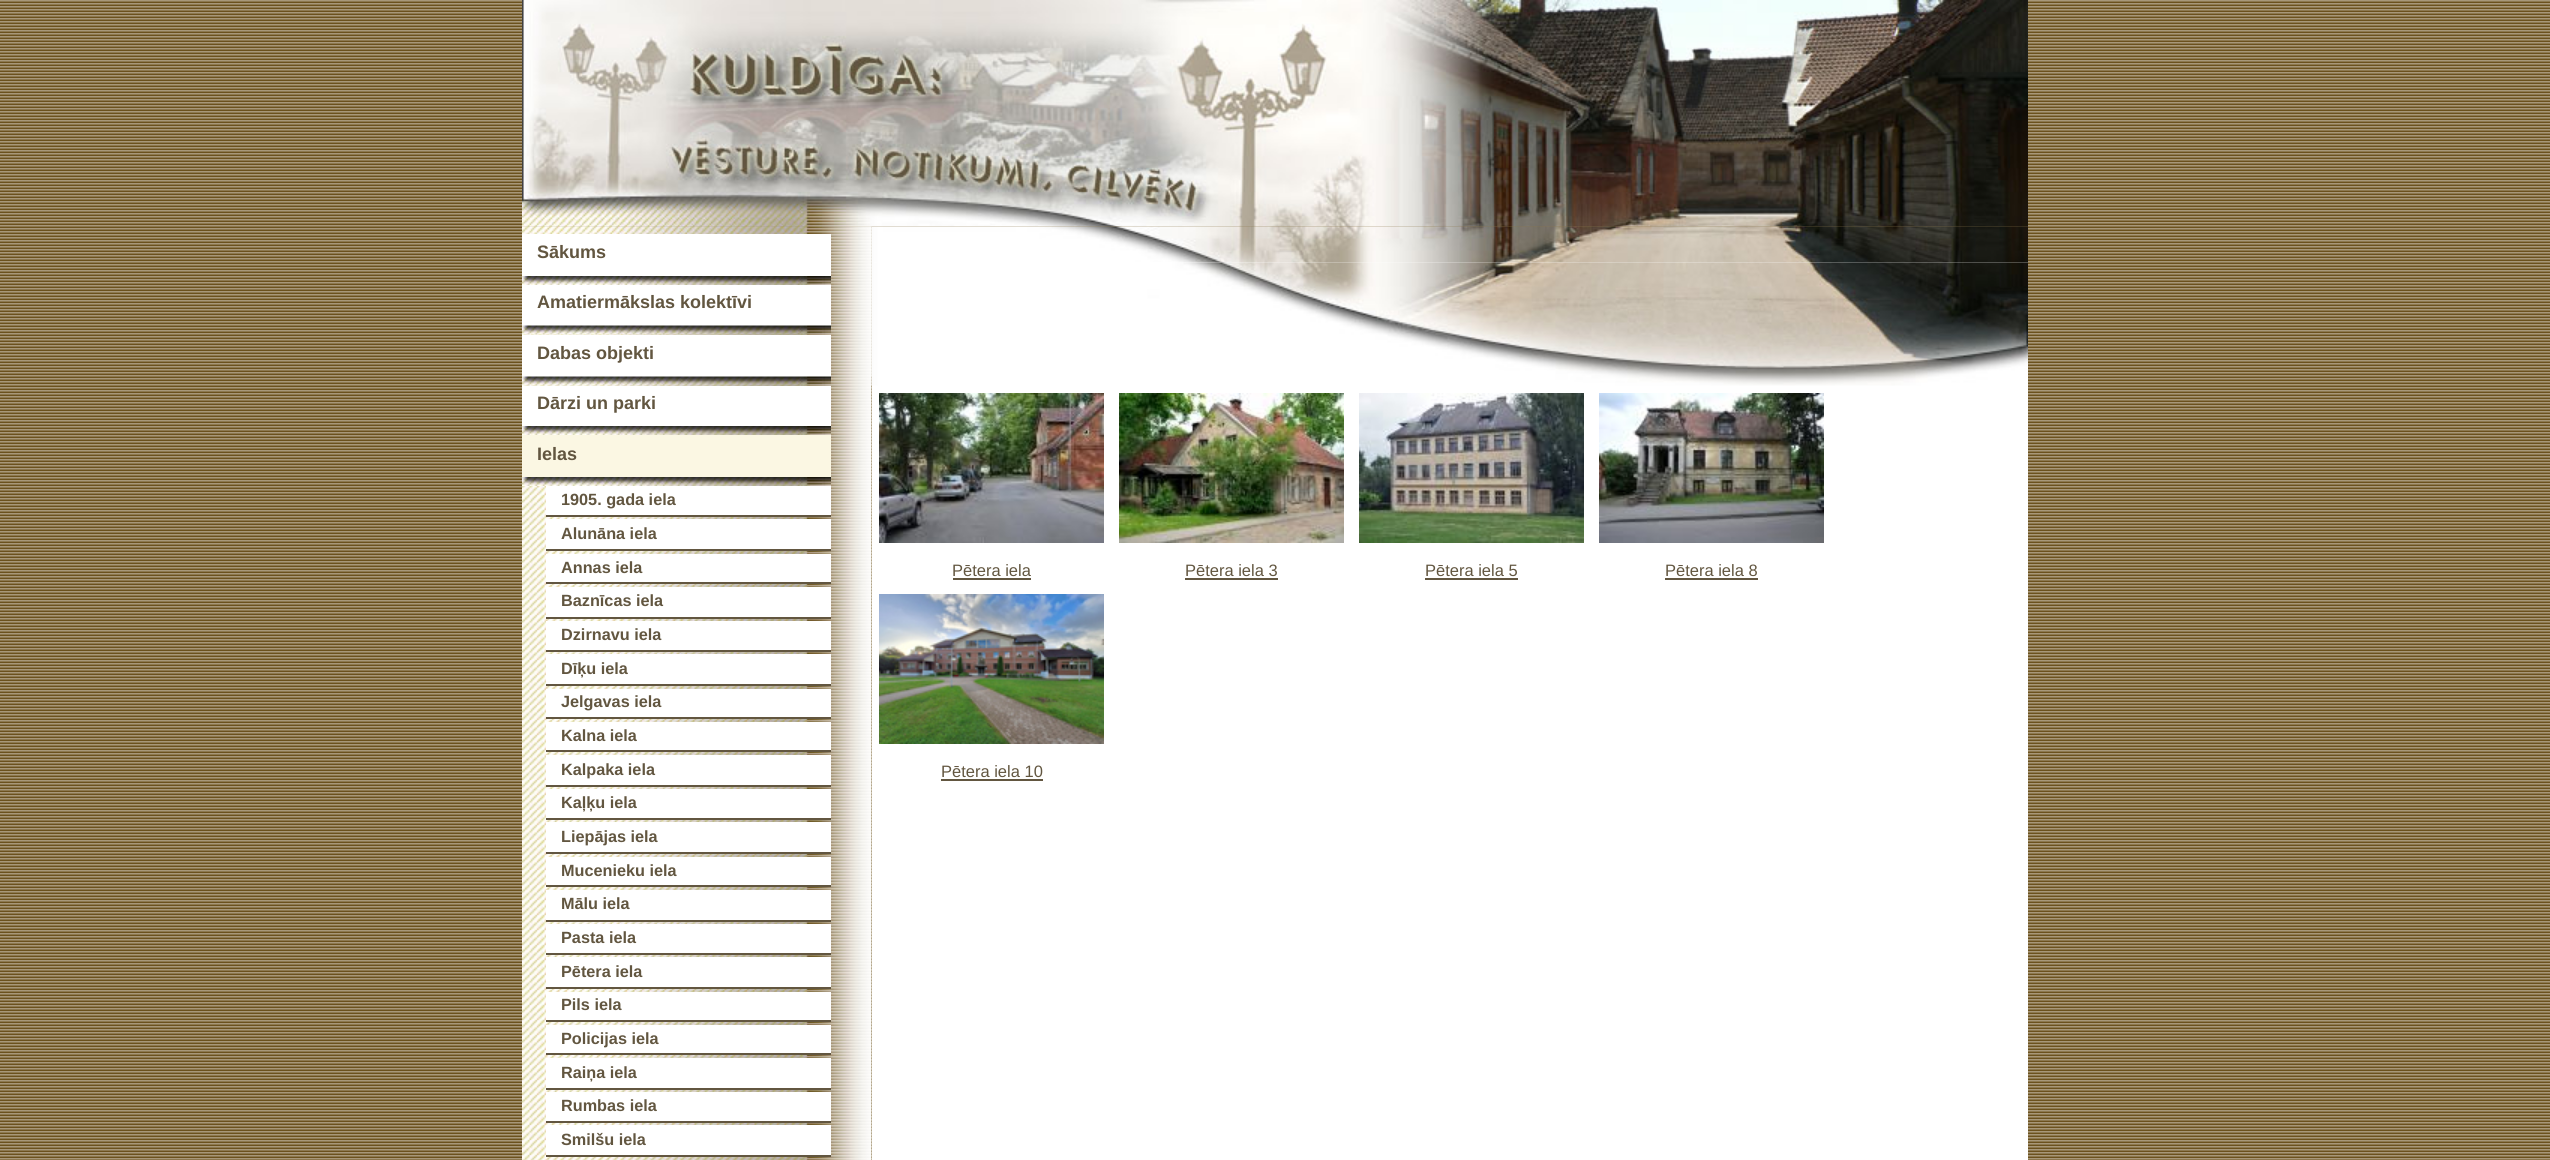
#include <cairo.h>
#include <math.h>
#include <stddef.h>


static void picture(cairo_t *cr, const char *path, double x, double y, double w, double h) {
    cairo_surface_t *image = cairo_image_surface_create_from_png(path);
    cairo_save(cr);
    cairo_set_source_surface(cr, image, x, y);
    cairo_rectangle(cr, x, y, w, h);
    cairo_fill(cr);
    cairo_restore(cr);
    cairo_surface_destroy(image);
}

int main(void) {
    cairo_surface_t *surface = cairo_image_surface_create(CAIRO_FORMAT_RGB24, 2550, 1160);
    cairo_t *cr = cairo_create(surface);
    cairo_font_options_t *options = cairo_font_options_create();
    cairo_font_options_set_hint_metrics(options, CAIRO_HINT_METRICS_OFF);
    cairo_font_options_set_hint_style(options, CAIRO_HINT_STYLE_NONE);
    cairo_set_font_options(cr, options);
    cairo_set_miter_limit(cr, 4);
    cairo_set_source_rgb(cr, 1, 1, 1);
    cairo_paint(cr);
    picture(cr, "img1.png", 0, 0, 2550, 1160);
    picture(cr, "img2.png", 522, 0, 1506, 227);
    picture(cr, "img3.png", 522, 226, 350, 934);
    picture(cr, "img4.png", 522, 226, 350, 151);
    cairo_set_source_rgb(cr, 1, 1, 1);
    cairo_rectangle(cr, 522, 234, 309, 42);
    cairo_fill(cr);
    cairo_select_font_face(cr, "Liberation Sans", CAIRO_FONT_SLANT_NORMAL, CAIRO_FONT_WEIGHT_BOLD);
    cairo_set_font_size(cr, 18);
    cairo_set_source_rgb(cr, 0.384, 0.337, 0.251);
    cairo_move_to(cr, 537, 258);
    cairo_show_text(cr, "Sākums");
    picture(cr, "img5.png", 522, 276, 309, 9);
    cairo_set_source_rgb(cr, 1, 1, 1);
    cairo_rectangle(cr, 522, 285, 309, 41);
    cairo_fill(cr);
    cairo_set_source_rgb(cr, 0.384, 0.337, 0.251);
    cairo_move_to(cr, 537, 308);
    cairo_show_text(cr, "Amatiermākslas kolektīvi");
    picture(cr, "img6.png", 522, 325, 309, 10);
    cairo_set_source_rgb(cr, 1, 1, 1);
    cairo_rectangle(cr, 522, 335, 309, 42);
    cairo_fill(cr);
    cairo_set_source_rgb(cr, 0.384, 0.337, 0.251);
    cairo_move_to(cr, 537, 359);
    cairo_show_text(cr, "Dabas objekti");
    picture(cr, "img7.png", 522, 376, 309, 10);
    cairo_set_source_rgb(cr, 1, 1, 1);
    cairo_rectangle(cr, 522, 386, 309, 40);
    cairo_fill(cr);
    cairo_set_source_rgb(cr, 0.384, 0.337, 0.251);
    cairo_move_to(cr, 537, 409);
    cairo_show_text(cr, "Dārzi un parki");
    picture(cr, "img5.png", 522, 426, 309, 9);
    cairo_set_source_rgb(cr, 0.984, 0.965, 0.89);
    cairo_rectangle(cr, 522, 435, 309, 42);
    cairo_fill(cr);
    cairo_set_source_rgb(cr, 0.384, 0.337, 0.251);
    cairo_move_to(cr, 537, 460);
    cairo_show_text(cr, "Ielas");
    picture(cr, "img5.png", 522, 477, 309, 9);
    cairo_set_source_rgb(cr, 1, 1, 1);
    cairo_rectangle(cr, 546, 486, 285, 29);
    cairo_fill(cr);
    cairo_set_source_rgb(cr, 0.384, 0.337, 0.251);
    cairo_rectangle(cr, 546, 515, 285, 2);
    cairo_fill(cr);
    cairo_set_font_size(cr, 16.25);
    cairo_move_to(cr, 561, 505);
    cairo_show_text(cr, "1905. gada iela");
    cairo_set_source_rgb(cr, 1, 1, 1);
    cairo_rectangle(cr, 546, 519, 285, 30);
    cairo_fill(cr);
    cairo_set_source_rgb(cr, 0.384, 0.337, 0.251);
    cairo_rectangle(cr, 546, 549, 285, 2);
    cairo_fill(cr);
    cairo_move_to(cr, 561, 539);
    cairo_show_text(cr, "Alunāna iela");
    cairo_set_source_rgb(cr, 1, 1, 1);
    cairo_rectangle(cr, 546, 554, 285, 28);
    cairo_fill(cr);
    cairo_set_source_rgb(cr, 0.384, 0.337, 0.251);
    cairo_rectangle(cr, 546, 582, 285, 2);
    cairo_fill(cr);
    cairo_move_to(cr, 561, 573);
    cairo_show_text(cr, "Annas iela");
    cairo_set_source_rgb(cr, 1, 1, 1);
    cairo_rectangle(cr, 546, 587, 285, 30);
    cairo_fill(cr);
    cairo_set_source_rgb(cr, 0.384, 0.337, 0.251);
    cairo_rectangle(cr, 546, 617, 285, 2);
    cairo_fill(cr);
    cairo_move_to(cr, 561, 606);
    cairo_show_text(cr, "Baznīcas iela");
    cairo_set_source_rgb(cr, 1, 1, 1);
    cairo_rectangle(cr, 546, 621, 285, 29);
    cairo_fill(cr);
    cairo_set_source_rgb(cr, 0.384, 0.337, 0.251);
    cairo_rectangle(cr, 546, 650, 285, 2);
    cairo_fill(cr);
    cairo_move_to(cr, 561, 640);
    cairo_show_text(cr, "Dzirnavu iela");
    cairo_set_source_rgb(cr, 1, 1, 1);
    cairo_rectangle(cr, 546, 654, 285, 30);
    cairo_fill(cr);
    cairo_set_source_rgb(cr, 0.384, 0.337, 0.251);
    cairo_rectangle(cr, 546, 684, 285, 2);
    cairo_fill(cr);
    cairo_move_to(cr, 561, 674);
    cairo_show_text(cr, "Dīķu iela");
    cairo_set_source_rgb(cr, 1, 1, 1);
    cairo_rectangle(cr, 546, 689, 285, 28);
    cairo_fill(cr);
    cairo_set_source_rgb(cr, 0.384, 0.337, 0.251);
    cairo_rectangle(cr, 546, 717, 285, 2);
    cairo_fill(cr);
    cairo_move_to(cr, 561, 707);
    cairo_show_text(cr, "Jelgavas iela");
    cairo_set_source_rgb(cr, 1, 1, 1);
    cairo_rectangle(cr, 546, 722, 285, 28);
    cairo_fill(cr);
    cairo_set_source_rgb(cr, 0.384, 0.337, 0.251);
    cairo_rectangle(cr, 546, 750, 285, 2);
    cairo_fill(cr);
    cairo_move_to(cr, 561, 741);
    cairo_show_text(cr, "Kalna iela");
    cairo_set_source_rgb(cr, 1, 1, 1);
    cairo_rectangle(cr, 546, 755, 285, 30);
    cairo_fill(cr);
    cairo_set_source_rgb(cr, 0.384, 0.337, 0.251);
    cairo_rectangle(cr, 546, 785, 285, 2);
    cairo_fill(cr);
    cairo_move_to(cr, 561, 775);
    cairo_show_text(cr, "Kalpaka iela");
    cairo_set_source_rgb(cr, 1, 1, 1);
    cairo_rectangle(cr, 546, 789, 285, 29);
    cairo_fill(cr);
    cairo_set_source_rgb(cr, 0.384, 0.337, 0.251);
    cairo_rectangle(cr, 546, 818, 285, 2);
    cairo_fill(cr);
    cairo_move_to(cr, 561, 808);
    cairo_show_text(cr, "Kaļķu iela");
    cairo_set_source_rgb(cr, 1, 1, 1);
    cairo_rectangle(cr, 546, 822, 285, 30);
    cairo_fill(cr);
    cairo_set_source_rgb(cr, 0.384, 0.337, 0.251);
    cairo_rectangle(cr, 546, 852, 285, 2);
    cairo_fill(cr);
    cairo_move_to(cr, 561, 842);
    cairo_show_text(cr, "Liepājas iela");
    cairo_set_source_rgb(cr, 1, 1, 1);
    cairo_rectangle(cr, 546, 857, 285, 28);
    cairo_fill(cr);
    cairo_set_source_rgb(cr, 0.384, 0.337, 0.251);
    cairo_rectangle(cr, 546, 885, 285, 2);
    cairo_fill(cr);
    cairo_move_to(cr, 561, 876);
    cairo_show_text(cr, "Mucenieku iela");
    cairo_set_source_rgb(cr, 1, 1, 1);
    cairo_rectangle(cr, 546, 890, 285, 30);
    cairo_fill(cr);
    cairo_set_source_rgb(cr, 0.384, 0.337, 0.251);
    cairo_rectangle(cr, 546, 920, 285, 2);
    cairo_fill(cr);
    cairo_move_to(cr, 561, 909);
    cairo_show_text(cr, "Mālu iela");
    cairo_set_source_rgb(cr, 1, 1, 1);
    cairo_rectangle(cr, 546, 924, 285, 29);
    cairo_fill(cr);
    cairo_set_source_rgb(cr, 0.384, 0.337, 0.251);
    cairo_rectangle(cr, 546, 953, 285, 2);
    cairo_fill(cr);
    cairo_move_to(cr, 561, 943);
    cairo_show_text(cr, "Pasta iela");
    cairo_set_source_rgb(cr, 1, 1, 1);
    cairo_rectangle(cr, 546, 957, 285, 30);
    cairo_fill(cr);
    cairo_set_source_rgb(cr, 0.384, 0.337, 0.251);
    cairo_rectangle(cr, 546, 987, 285, 2);
    cairo_fill(cr);
    cairo_move_to(cr, 561, 977);
    cairo_show_text(cr, "Pētera iela");
    cairo_set_source_rgb(cr, 1, 1, 1);
    cairo_rectangle(cr, 546, 992, 285, 28);
    cairo_fill(cr);
    cairo_set_source_rgb(cr, 0.384, 0.337, 0.251);
    cairo_rectangle(cr, 546, 1020, 285, 2);
    cairo_fill(cr);
    cairo_move_to(cr, 561, 1010);
    cairo_show_text(cr, "Pils iela");
    cairo_set_source_rgb(cr, 1, 1, 1);
    cairo_rectangle(cr, 546, 1025, 285, 28);
    cairo_fill(cr);
    cairo_set_source_rgb(cr, 0.384, 0.337, 0.251);
    cairo_rectangle(cr, 546, 1053, 285, 2);
    cairo_fill(cr);
    cairo_move_to(cr, 561, 1044);
    cairo_show_text(cr, "Policijas iela");
    cairo_set_source_rgb(cr, 1, 1, 1);
    cairo_rectangle(cr, 546, 1058, 285, 30);
    cairo_fill(cr);
    cairo_set_source_rgb(cr, 0.384, 0.337, 0.251);
    cairo_rectangle(cr, 546, 1088, 285, 2);
    cairo_fill(cr);
    cairo_move_to(cr, 561, 1078);
    cairo_show_text(cr, "Raiņa iela");
    cairo_set_source_rgb(cr, 1, 1, 1);
    cairo_rectangle(cr, 546, 1092, 285, 29);
    cairo_fill(cr);
    cairo_set_source_rgb(cr, 0.384, 0.337, 0.251);
    cairo_rectangle(cr, 546, 1121, 285, 2);
    cairo_fill(cr);
    cairo_move_to(cr, 561, 1111);
    cairo_show_text(cr, "Rumbas iela");
    cairo_set_source_rgb(cr, 1, 1, 1);
    cairo_rectangle(cr, 546, 1125, 285, 30);
    cairo_fill(cr);
    cairo_set_source_rgb(cr, 0.384, 0.337, 0.251);
    cairo_rectangle(cr, 546, 1155, 285, 2);
    cairo_fill(cr);
    cairo_move_to(cr, 561, 1145);
    cairo_show_text(cr, "Smilšu iela");
    cairo_set_source_rgb(cr, 1, 1, 1);
    cairo_rectangle(cr, 872, 262, 1156, 898);
    cairo_fill(cr);
    picture(cr, "img8.png", 871, 226, 1157, 37);
    picture(cr, "img9.png", 871, 262, 1157, 124);
    picture(cr, "img10.png", 879, 393, 225, 150);
    picture(cr, "img11.png", 1119, 393, 225, 150);
    picture(cr, "img12.png", 1359, 393, 225, 150);
    picture(cr, "img13.png", 1599, 393, 225, 150);
    cairo_select_font_face(cr, "Liberation Sans", CAIRO_FONT_SLANT_NORMAL, CAIRO_FONT_WEIGHT_NORMAL);
    cairo_set_font_size(cr, 16.5);
    cairo_set_source_rgb(cr, 0.384, 0.337, 0.251);
    cairo_move_to(cr, 952, 576);
    cairo_show_text(cr, "Pētera iela");
    cairo_rectangle(cr, 953, 578, 78, 2);
    cairo_fill(cr);
    cairo_move_to(cr, 1185, 576);
    cairo_show_text(cr, "Pētera iela 3");
    cairo_rectangle(cr, 1185, 578, 93, 2);
    cairo_fill(cr);
    cairo_move_to(cr, 1425, 576);
    cairo_show_text(cr, "Pētera iela 5");
    cairo_rectangle(cr, 1425, 578, 93, 2);
    cairo_fill(cr);
    cairo_move_to(cr, 1665, 576);
    cairo_show_text(cr, "Pētera iela 8");
    cairo_rectangle(cr, 1665, 578, 93, 2);
    cairo_fill(cr);
    picture(cr, "img14.png", 879, 594, 225, 150);
    cairo_move_to(cr, 941, 777);
    cairo_show_text(cr, "Pētera iela 10");
    cairo_rectangle(cr, 941, 779, 102, 2);
    cairo_fill(cr);
    cairo_surface_write_to_png(surface, "page.png");
    cairo_font_options_destroy(options);
    cairo_destroy(cr);
    cairo_surface_destroy(surface);
    return 0;
}
